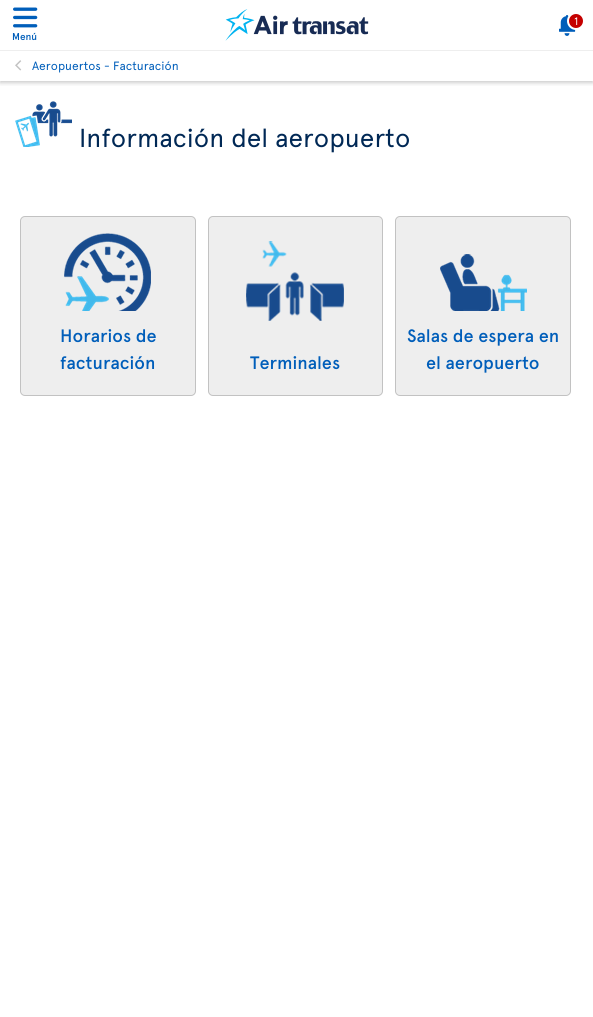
#include <cairo.h>
#include <math.h>
#include <stddef.h>


static void round_rect(cairo_t *cr, double x, double y, double w, double h, double r) {
    cairo_new_sub_path(cr);
    cairo_arc(cr, x + w - r, y + h - r, r, 0, M_PI / 2);
    cairo_arc(cr, x + r, y + h - r, r, M_PI / 2, M_PI);
    cairo_arc(cr, x + r, y + r, r, M_PI, 1.5 * M_PI);
    cairo_arc(cr, x + w - r, y + r, r, 1.5 * M_PI, 2 * M_PI);
    cairo_close_path(cr);
}

static void shadow(cairo_t *cr, double x, double y, double w, double h, double r, double blur, double alpha) {
    cairo_push_group_with_content(cr, CAIRO_CONTENT_ALPHA);
    cairo_set_operator(cr, CAIRO_OPERATOR_SOURCE);
    for (int i = 15; i >= -15 && fmin(w, h) + blur * i / 3 > 0; i -= 2) {
        double e = blur * i / 6;
        cairo_set_source_rgba(cr, 0, 0, 0, alpha * erfc((i - 1) / 8.5) / 2);
        round_rect(cr, x - e, y - e, w + 2 * e, h + 2 * e, fmax(0, fmin(r + e + blur * .6, fmin(w, h) / 2 + e)));
        cairo_fill(cr);
    }
    cairo_pattern_t *soft = cairo_pop_group(cr);
    cairo_mask(cr, soft);
    cairo_pattern_destroy(soft);
}

static void picture(cairo_t *cr, const char *path, double x, double y, double w, double h) {
    cairo_surface_t *image = cairo_image_surface_create_from_png(path);
    cairo_save(cr);
    cairo_set_source_surface(cr, image, x, y);
    cairo_rectangle(cr, x, y, w, h);
    cairo_fill(cr);
    cairo_restore(cr);
    cairo_surface_destroy(image);
}

int main(void) {
    cairo_surface_t *surface = cairo_image_surface_create(CAIRO_FORMAT_RGB24, 593, 1017);
    cairo_t *cr = cairo_create(surface);
    cairo_font_options_t *options = cairo_font_options_create();
    cairo_font_options_set_hint_metrics(options, CAIRO_HINT_METRICS_OFF);
    cairo_font_options_set_hint_style(options, CAIRO_HINT_STYLE_NONE);
    cairo_set_font_options(cr, options);
    cairo_set_miter_limit(cr, 4);
    cairo_set_source_rgb(cr, 1, 1, 1);
    cairo_paint(cr);
    cairo_save(cr);
    cairo_rectangle(cr, 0, 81, 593, 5);
    cairo_clip(cr);
    cairo_set_source_rgb(cr, 0, 0, 0);
    shadow(cr, 0, 2, 593, 81, 0, 2, 0.2);
    cairo_restore(cr);
    picture(cr, "img1.png", 225, 9, 144, 32);
    picture(cr, "img2.png", 559, 15, 17, 21);
    cairo_set_source_rgb(cr, 0.773, 0, 0);
    cairo_arc(cr, 576, 21, 8, 0, 2 * M_PI);
    cairo_fill_preserve(cr);
    cairo_set_source_rgb(cr, 1, 1, 1);
    cairo_stroke(cr);
    cairo_select_font_face(cr, "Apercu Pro", CAIRO_FONT_SLANT_NORMAL, CAIRO_FONT_WEIGHT_NORMAL);
    cairo_set_font_size(cr, 11);
    cairo_move_to(cr, 574, 25);
    cairo_show_text(cr, "1");
    picture(cr, "img3.png", 13, 7, 25, 21);
    cairo_select_font_face(cr, "Apercu Pro Medium", CAIRO_FONT_SLANT_NORMAL, CAIRO_FONT_WEIGHT_NORMAL);
    cairo_set_font_size(cr, 10);
    cairo_set_source_rgb(cr, 0, 0.369, 0.729);
    cairo_move_to(cr, 12, 40);
    cairo_show_text(cr, "Menú");
    cairo_set_source_rgb(cr, 0.933, 0.933, 0.933);
    cairo_rectangle(cr, 0, 50, 593, 1);
    cairo_fill(cr);
    cairo_select_font_face(cr, "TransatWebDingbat", CAIRO_FONT_SLANT_NORMAL, CAIRO_FONT_WEIGHT_NORMAL);
    cairo_set_font_size(cr, 16);
    cairo_set_source_rgb(cr, 0.761, 0.761, 0.761);
    cairo_move_to(cr, 15, 70);
    cairo_show_text(cr, "<");
    cairo_select_font_face(cr, "Apercu Pro", CAIRO_FONT_SLANT_NORMAL, CAIRO_FONT_WEIGHT_NORMAL);
    cairo_set_font_size(cr, 12);
    cairo_set_source_rgb(cr, 0, 0.369, 0.729);
    cairo_move_to(cr, 32, 70);
    cairo_show_text(cr, "Aeropuertos - Facturación");
    picture(cr, "img4.png", 15, 101, 57, 46);
    cairo_set_font_size(cr, 26);
    cairo_set_source_rgb(cr, 0, 0.157, 0.333);
    cairo_move_to(cr, 79, 147);
    cairo_show_text(cr, "Información del aeropuerto");
    cairo_set_source_rgb(cr, 0.933, 0.933, 0.933);
    round_rect(cr, 20.5, 216.5, 175, 179, 4.5);
    cairo_fill_preserve(cr);
    cairo_set_source_rgb(cr, 0.761, 0.761, 0.761);
    cairo_set_line_width(cr, 1);
    cairo_stroke(cr);
    picture(cr, "img5.png", 64, 233, 87, 78);
    cairo_select_font_face(cr, "Apercu Pro Medium", CAIRO_FONT_SLANT_NORMAL, CAIRO_FONT_WEIGHT_NORMAL);
    cairo_set_font_size(cr, 18);
    cairo_set_source_rgb(cr, 0, 0.369, 0.729);
    cairo_move_to(cr, 60, 342);
    cairo_show_text(cr, "Horarios de");
    cairo_move_to(cr, 60, 369);
    cairo_show_text(cr, "facturación");
    cairo_set_source_rgb(cr, 0.933, 0.933, 0.933);
    round_rect(cr, 208.5, 216.5, 174, 179, 4.5);
    cairo_fill_preserve(cr);
    cairo_set_source_rgb(cr, 0.761, 0.761, 0.761);
    cairo_stroke(cr);
    picture(cr, "img6.png", 246, 241, 98, 80);
    cairo_set_source_rgb(cr, 0, 0.369, 0.729);
    cairo_move_to(cr, 250, 369);
    cairo_show_text(cr, "Terminales");
    cairo_set_source_rgb(cr, 0.933, 0.933, 0.933);
    round_rect(cr, 395.5, 216.5, 175, 179, 4.5);
    cairo_fill_preserve(cr);
    cairo_set_source_rgb(cr, 0.761, 0.761, 0.761);
    cairo_stroke(cr);
    picture(cr, "img7.png", 440, 254, 87, 57);
    cairo_set_source_rgb(cr, 0, 0.369, 0.729);
    cairo_move_to(cr, 407, 342);
    cairo_show_text(cr, "Salas de espera en");
    cairo_move_to(cr, 426, 369);
    cairo_show_text(cr, "el aeropuerto");
    cairo_surface_write_to_png(surface, "page.png");
    cairo_font_options_destroy(options);
    cairo_destroy(cr);
    cairo_surface_destroy(surface);
    return 0;
}
